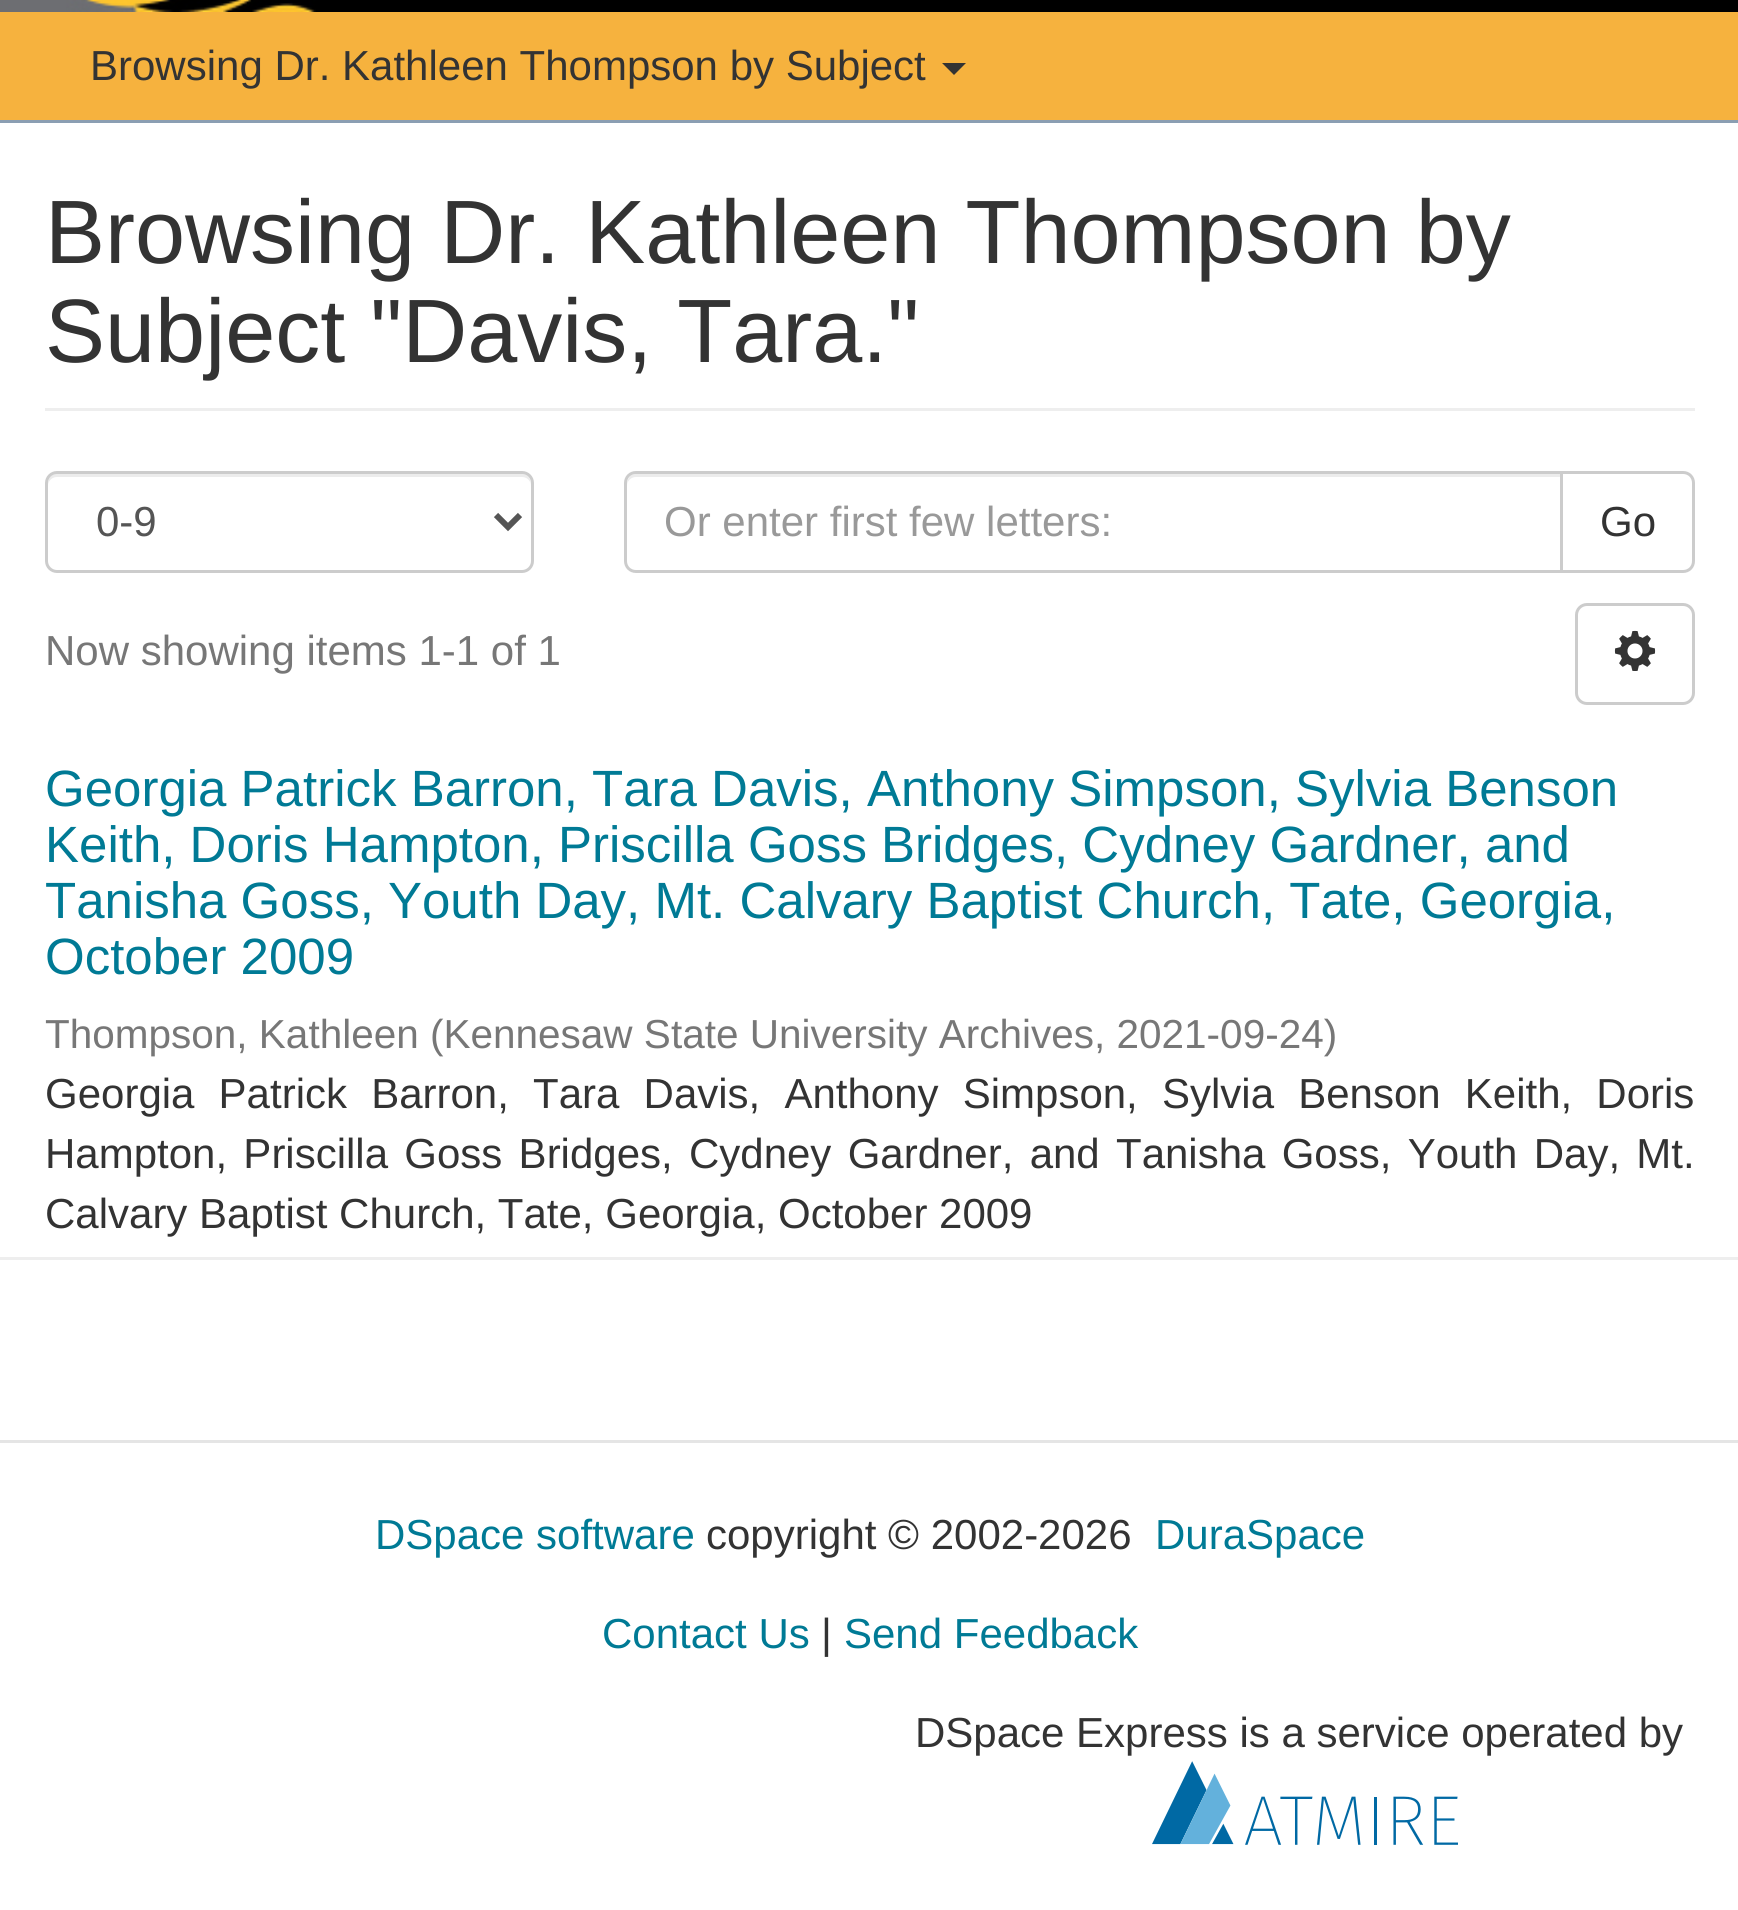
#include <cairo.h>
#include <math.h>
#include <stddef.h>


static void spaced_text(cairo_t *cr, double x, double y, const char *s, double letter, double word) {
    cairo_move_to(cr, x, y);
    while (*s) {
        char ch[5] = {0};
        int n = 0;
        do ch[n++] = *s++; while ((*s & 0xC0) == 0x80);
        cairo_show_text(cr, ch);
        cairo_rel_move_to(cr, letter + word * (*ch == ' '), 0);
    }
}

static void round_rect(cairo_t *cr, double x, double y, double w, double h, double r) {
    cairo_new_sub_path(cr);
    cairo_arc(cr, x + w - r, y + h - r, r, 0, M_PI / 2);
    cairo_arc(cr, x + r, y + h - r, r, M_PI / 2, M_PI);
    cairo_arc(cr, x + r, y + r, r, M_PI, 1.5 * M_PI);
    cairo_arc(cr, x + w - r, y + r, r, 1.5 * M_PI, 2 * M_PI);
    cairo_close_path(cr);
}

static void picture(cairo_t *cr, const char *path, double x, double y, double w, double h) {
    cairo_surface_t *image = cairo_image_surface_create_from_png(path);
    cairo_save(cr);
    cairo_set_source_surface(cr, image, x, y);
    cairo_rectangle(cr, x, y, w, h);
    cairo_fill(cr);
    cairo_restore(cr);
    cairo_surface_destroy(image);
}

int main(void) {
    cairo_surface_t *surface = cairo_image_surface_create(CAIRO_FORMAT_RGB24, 1738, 1910);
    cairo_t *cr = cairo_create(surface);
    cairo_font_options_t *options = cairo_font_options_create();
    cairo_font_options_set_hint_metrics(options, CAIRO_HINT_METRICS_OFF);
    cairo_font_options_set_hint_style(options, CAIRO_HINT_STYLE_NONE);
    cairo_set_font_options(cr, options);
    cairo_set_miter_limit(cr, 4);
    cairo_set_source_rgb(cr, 1, 1, 1);
    cairo_paint(cr);
    cairo_set_source_rgb(cr, 0, 0, 0);
    cairo_rectangle(cr, 316, 0, 1422, 12);
    cairo_fill(cr);
    picture(cr, "img1.png", 0, 0, 316, 12);
    cairo_set_source_rgb(cr, 0.961, 0.698, 0.243);
    cairo_rectangle(cr, 0, 12, 1738, 108);
    cairo_fill(cr);
    cairo_set_source_rgb(cr, 0.545, 0.62, 0.698);
    cairo_rectangle(cr, 0, 120, 1738, 3);
    cairo_fill(cr);
    cairo_select_font_face(cr, "Liberation Sans", CAIRO_FONT_SLANT_NORMAL, CAIRO_FONT_WEIGHT_NORMAL);
    cairo_set_font_size(cr, 42);
    cairo_set_source_rgb(cr, 0.2, 0.2, 0.2);
    cairo_move_to(cr, 90, 80);
    cairo_show_text(cr, "Browsing Dr. Kathleen Thompson by Subject");
    cairo_new_path(cr);
    cairo_move_to(cr, 942, 63);
    cairo_line_to(cr, 966, 63);
    cairo_line_to(cr, 954, 75);
    cairo_close_path(cr);
    cairo_fill(cr);
    cairo_set_source_rgb(cr, 0.933, 0.933, 0.933);
    cairo_rectangle(cr, 45, 408, 1650, 3);
    cairo_fill(cr);
    cairo_set_font_size(cr, 90);
    cairo_set_source_rgb(cr, 0.2, 0.2, 0.2);
    cairo_move_to(cr, 45, 263);
    cairo_show_text(cr, "Browsing Dr. Kathleen Thompson by");
    cairo_move_to(cr, 45, 362);
    cairo_show_text(cr, "Subject \"Davis, Tara.\"");
    cairo_set_source_rgb(cr, 0.925, 0.925, 0.925);
    cairo_new_path(cr);
    cairo_move_to(cr, 57, 477);
    cairo_line_to(cr, 522, 477);
    cairo_curve_to(cr, 527, 477, 531, 481, 531, 486);
    cairo_curve_to(cr, 531, 480, 529, 474, 522, 474);
    cairo_line_to(cr, 55, 474);
    cairo_curve_to(cr, 49, 475, 48, 481, 48, 486);
    cairo_curve_to(cr, 48, 481, 52, 477, 57, 477);
    cairo_close_path(cr);
    cairo_fill(cr);
    round_rect(cr, 46.5, 472.5, 486, 99, 10.5);
    cairo_set_source_rgb(cr, 0.8, 0.8, 0.8);
    cairo_set_line_width(cr, 3);
    cairo_stroke(cr);
    cairo_new_path(cr);
    cairo_move_to(cr, 496, 515);
    cairo_line_to(cr, 508, 527);
    cairo_line_to(cr, 520, 515);
    cairo_set_source_rgb(cr, 0.333, 0.333, 0.333);
    cairo_set_line_width(cr, 6);
    cairo_stroke(cr);
    cairo_set_font_size(cr, 42);
    cairo_move_to(cr, 96, 536);
    cairo_show_text(cr, "0-9");
    cairo_new_path(cr);
    cairo_move_to(cr, 1561.5, 472.5);
    cairo_line_to(cr, 1683, 472.5);
    cairo_curve_to(cr, 1689, 472.5, 1693.5, 477, 1693.5, 483);
    cairo_line_to(cr, 1693.5, 561);
    cairo_curve_to(cr, 1693.5, 567, 1689, 571.5, 1683, 571.5);
    cairo_line_to(cr, 1561.5, 571.5);
    cairo_close_path(cr);
    cairo_set_source_rgb(cr, 0.8, 0.8, 0.8);
    cairo_set_line_width(cr, 3);
    cairo_stroke(cr);
    cairo_set_source_rgb(cr, 1, 1, 1);
    cairo_new_path(cr);
    cairo_move_to(cr, 636, 471);
    cairo_line_to(cr, 1563, 471);
    cairo_line_to(cr, 1563, 573);
    cairo_line_to(cr, 636, 573);
    cairo_curve_to(cr, 629.5, 573, 624, 567.5, 624, 561);
    cairo_line_to(cr, 624, 483);
    cairo_curve_to(cr, 624, 476.5, 629.5, 471, 636, 471);
    cairo_close_path(cr);
    cairo_fill(cr);
    cairo_set_source_rgb(cr, 0.925, 0.925, 0.925);
    cairo_new_path(cr);
    cairo_move_to(cr, 636, 477);
    cairo_line_to(cr, 1560, 477);
    cairo_line_to(cr, 1560, 474);
    cairo_line_to(cr, 636, 474);
    cairo_curve_to(cr, 629, 474, 627, 480, 627, 486);
    cairo_curve_to(cr, 627, 481, 631, 477, 636, 477);
    cairo_close_path(cr);
    cairo_fill(cr);
    cairo_new_path(cr);
    cairo_move_to(cr, 636, 472.5);
    cairo_line_to(cr, 1561.5, 472.5);
    cairo_line_to(cr, 1561.5, 571.5);
    cairo_line_to(cr, 636, 571.5);
    cairo_curve_to(cr, 630, 571.5, 625.5, 567, 625.5, 561);
    cairo_line_to(cr, 625.5, 483);
    cairo_curve_to(cr, 625.5, 477, 630, 472.5, 636, 472.5);
    cairo_close_path(cr);
    cairo_set_source_rgb(cr, 0.8, 0.8, 0.8);
    cairo_stroke(cr);
    cairo_set_source_rgb(cr, 0.6, 0.6, 0.6);
    cairo_move_to(cr, 664, 536);
    cairo_show_text(cr, "Or enter first few letters:");
    cairo_set_source_rgb(cr, 0.2, 0.2, 0.2);
    cairo_move_to(cr, 1600, 536);
    cairo_show_text(cr, "Go");
    cairo_set_source_rgb(cr, 0.467, 0.467, 0.467);
    cairo_move_to(cr, 45, 665);
    cairo_show_text(cr, "Now showing items 1-1 of 1");
    round_rect(cr, 1576.5, 604.5, 117, 99, 10.5);
    cairo_set_source_rgb(cr, 0.8, 0.8, 0.8);
    cairo_stroke(cr);
    picture(cr, "img2.png", 1614, 630, 42, 41);
    cairo_set_source_rgb(cr, 0.933, 0.933, 0.933);
    cairo_rectangle(cr, 0, 1257, 1738, 3);
    cairo_fill(cr);
    cairo_set_font_size(cr, 51);
    cairo_set_source_rgb(cr, 0, 0.478, 0.584);
    cairo_move_to(cr, 45, 806);
    cairo_show_text(cr, "Georgia Patrick Barron, Tara Davis, Anthony Simpson, Sylvia Benson");
    cairo_move_to(cr, 45, 862);
    cairo_show_text(cr, "Keith, Doris Hampton, Priscilla Goss Bridges, Cydney Gardner, and");
    cairo_move_to(cr, 45, 918);
    cairo_show_text(cr, "Tanisha Goss, Youth Day, Mt. Calvary Baptist Church, Tate, Georgia,");
    cairo_move_to(cr, 45, 974);
    cairo_show_text(cr, "October 2009");
    cairo_set_font_size(cr, 40.5);
    cairo_set_source_rgb(cr, 0.467, 0.467, 0.467);
    cairo_move_to(cr, 45, 1048);
    cairo_show_text(cr, "Thompson, Kathleen");
    cairo_move_to(cr, 430, 1048);
    cairo_show_text(cr, "(Kennesaw State University Archives, 2021-09-24)");
    cairo_set_font_size(cr, 42);
    cairo_set_source_rgb(cr, 0.2, 0.2, 0.2);
    spaced_text(cr, 45, 1108, "Georgia Patrick Barron, Tara Davis, Anthony Simpson, Sylvia Benson Keith, Doris", 0, 12.5);
    spaced_text(cr, 45, 1168, "Hampton, Priscilla Goss Bridges, Cydney Gardner, and Tanisha Goss, Youth Day, Mt.", 0, 4.6);
    cairo_move_to(cr, 45, 1228);
    cairo_show_text(cr, "Calvary Baptist Church, Tate, Georgia, October 2009");
    cairo_set_source_rgb(cr, 0.898, 0.898, 0.898);
    cairo_rectangle(cr, 0, 1440, 1738, 3);
    cairo_fill(cr);
    cairo_set_source_rgb(cr, 0, 0.478, 0.584);
    cairo_move_to(cr, 375, 1549);
    cairo_show_text(cr, "DSpace software");
    cairo_set_source_rgb(cr, 0.2, 0.2, 0.2);
    cairo_move_to(cr, 706, 1549);
    cairo_show_text(cr, "copyright © 2002-2026");
    cairo_set_source_rgb(cr, 0, 0.478, 0.584);
    cairo_move_to(cr, 1155, 1549);
    cairo_show_text(cr, "DuraSpace");
    cairo_move_to(cr, 602, 1648);
    cairo_show_text(cr, "Contact Us");
    cairo_set_source_rgb(cr, 0.2, 0.2, 0.2);
    cairo_move_to(cr, 821, 1648);
    cairo_show_text(cr, "|");
    cairo_set_source_rgb(cr, 0, 0.478, 0.584);
    cairo_move_to(cr, 844, 1648);
    cairo_show_text(cr, "Send Feedback");
    cairo_set_source_rgb(cr, 0.2, 0.2, 0.2);
    cairo_move_to(cr, 915, 1747);
    cairo_show_text(cr, "DSpace Express is a service operated by");
    picture(cr, "img3.png", 1152, 1761, 306, 84);
    cairo_surface_write_to_png(surface, "page.png");
    cairo_font_options_destroy(options);
    cairo_destroy(cr);
    cairo_surface_destroy(surface);
    return 0;
}
